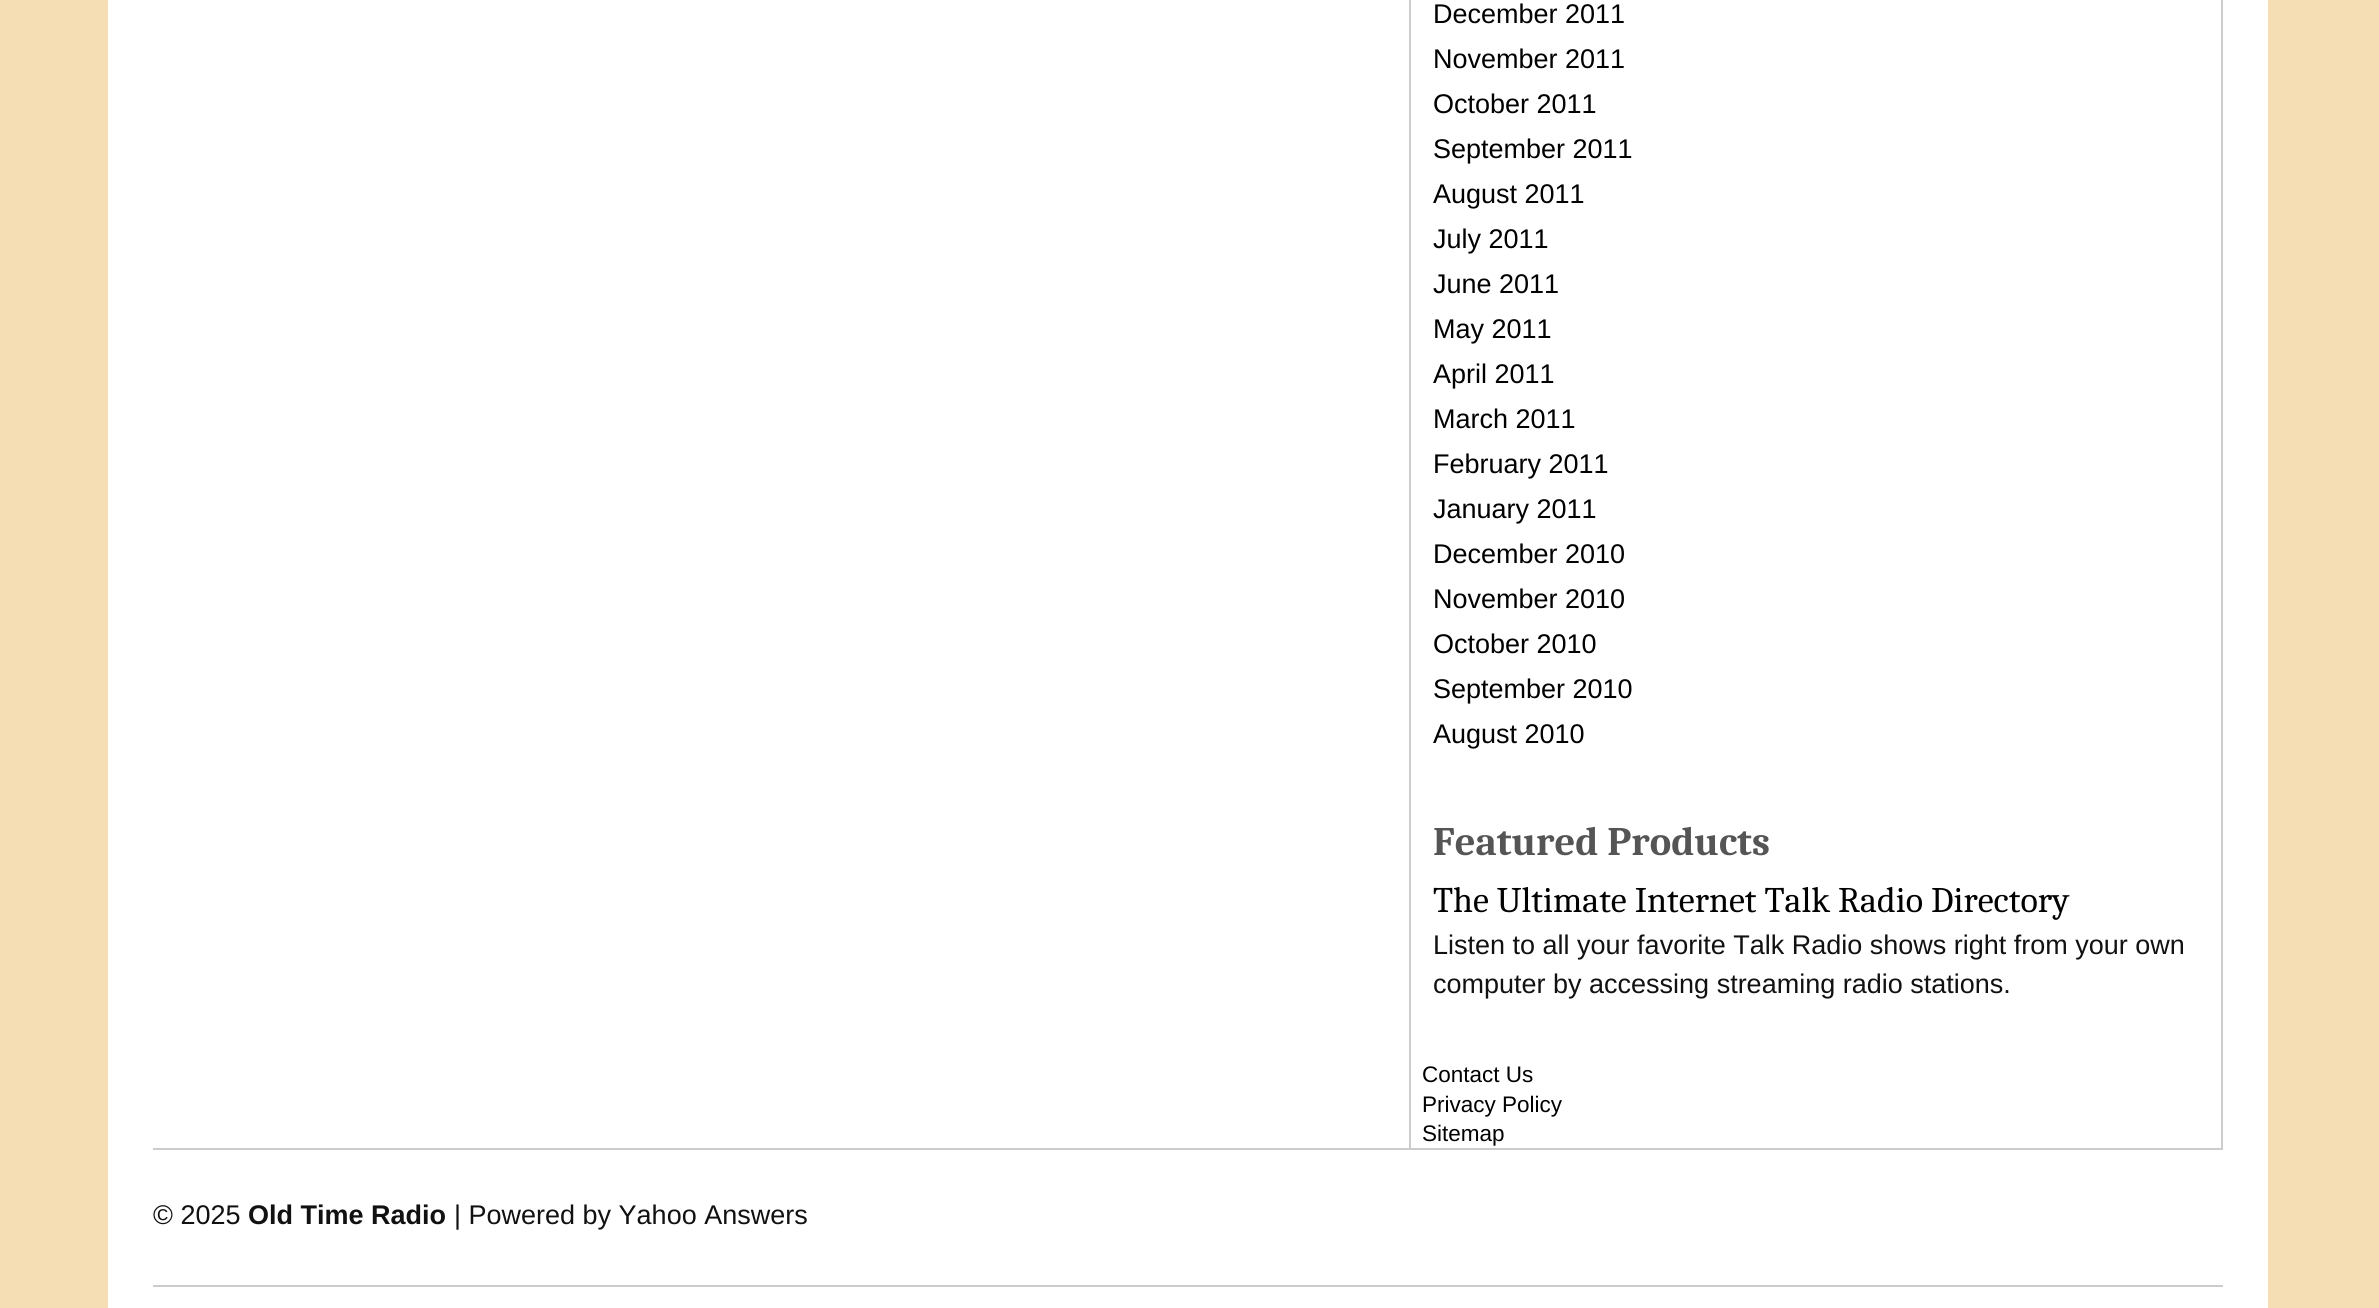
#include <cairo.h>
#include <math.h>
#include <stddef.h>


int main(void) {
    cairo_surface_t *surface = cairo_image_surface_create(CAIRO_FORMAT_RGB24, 2379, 1308);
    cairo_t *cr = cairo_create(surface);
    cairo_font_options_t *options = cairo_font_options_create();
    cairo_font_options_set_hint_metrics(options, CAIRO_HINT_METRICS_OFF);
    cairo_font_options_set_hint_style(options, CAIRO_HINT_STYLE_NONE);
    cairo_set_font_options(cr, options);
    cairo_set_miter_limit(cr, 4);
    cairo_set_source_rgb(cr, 0.961, 0.871, 0.706);
    cairo_paint(cr);
    cairo_set_source_rgb(cr, 1, 1, 1);
    cairo_rectangle(cr, 108, 0, 2160, 1308);
    cairo_fill(cr);
    cairo_set_source_rgb(cr, 0.8, 0.8, 0.8);
    cairo_rectangle(cr, 2221, 0, 2, 1148);
    cairo_fill(cr);
    cairo_rectangle(cr, 1409, 0, 2, 1148);
    cairo_fill(cr);
    cairo_select_font_face(cr, "Liberation Sans", CAIRO_FONT_SLANT_NORMAL, CAIRO_FONT_WEIGHT_NORMAL);
    cairo_set_font_size(cr, 27);
    cairo_set_source_rgb(cr, 0, 0, 0);
    cairo_move_to(cr, 1433, 23);
    cairo_show_text(cr, "December 2011");
    cairo_move_to(cr, 1433, 68);
    cairo_show_text(cr, "November 2011");
    cairo_move_to(cr, 1433, 113);
    cairo_show_text(cr, "October 2011");
    cairo_move_to(cr, 1433, 158);
    cairo_show_text(cr, "September 2011");
    cairo_move_to(cr, 1433, 203);
    cairo_show_text(cr, "August 2011");
    cairo_move_to(cr, 1433, 248);
    cairo_show_text(cr, "July 2011");
    cairo_move_to(cr, 1433, 293);
    cairo_show_text(cr, "June 2011");
    cairo_move_to(cr, 1433, 338);
    cairo_show_text(cr, "May 2011");
    cairo_move_to(cr, 1433, 383);
    cairo_show_text(cr, "April 2011");
    cairo_move_to(cr, 1433, 428);
    cairo_show_text(cr, "March 2011");
    cairo_move_to(cr, 1433, 473);
    cairo_show_text(cr, "February 2011");
    cairo_move_to(cr, 1433, 518);
    cairo_show_text(cr, "January 2011");
    cairo_move_to(cr, 1433, 563);
    cairo_show_text(cr, "December 2010");
    cairo_move_to(cr, 1433, 608);
    cairo_show_text(cr, "November 2010");
    cairo_move_to(cr, 1433, 653);
    cairo_show_text(cr, "October 2010");
    cairo_move_to(cr, 1433, 698);
    cairo_show_text(cr, "September 2010");
    cairo_move_to(cr, 1433, 743);
    cairo_show_text(cr, "August 2010");
    cairo_select_font_face(cr, "Caladea", CAIRO_FONT_SLANT_NORMAL, CAIRO_FONT_WEIGHT_BOLD);
    cairo_set_font_size(cr, 40.5);
    cairo_set_source_rgb(cr, 0.333, 0.333, 0.333);
    cairo_move_to(cr, 1433, 855);
    cairo_show_text(cr, "Featured Products");
    cairo_select_font_face(cr, "Caladea", CAIRO_FONT_SLANT_NORMAL, CAIRO_FONT_WEIGHT_NORMAL);
    cairo_set_font_size(cr, 36);
    cairo_set_source_rgb(cr, 0, 0, 0);
    cairo_move_to(cr, 1433, 912);
    cairo_show_text(cr, "The Ultimate Internet Talk Radio Directory");
    cairo_select_font_face(cr, "Liberation Sans", CAIRO_FONT_SLANT_NORMAL, CAIRO_FONT_WEIGHT_NORMAL);
    cairo_set_font_size(cr, 27);
    cairo_set_source_rgb(cr, 0.067, 0.067, 0.067);
    cairo_move_to(cr, 1433, 954);
    cairo_show_text(cr, "Listen to all your favorite Talk Radio shows right from your own");
    cairo_move_to(cr, 1433, 993);
    cairo_show_text(cr, "computer by accessing streaming radio stations.");
    cairo_set_font_size(cr, 22.5);
    cairo_set_source_rgb(cr, 0, 0, 0);
    cairo_move_to(cr, 1422, 1082);
    cairo_show_text(cr, "Contact Us");
    cairo_move_to(cr, 1422, 1112);
    cairo_show_text(cr, "Privacy Policy");
    cairo_move_to(cr, 1422, 1141);
    cairo_show_text(cr, "Sitemap");
    cairo_set_source_rgb(cr, 0.8, 0.8, 0.8);
    cairo_rectangle(cr, 153, 1148, 2070, 2);
    cairo_fill(cr);
    cairo_rectangle(cr, 153, 1285, 2070, 2);
    cairo_fill(cr);
    cairo_set_font_size(cr, 27);
    cairo_set_source_rgb(cr, 0.067, 0.067, 0.067);
    cairo_move_to(cr, 153, 1224);
    cairo_show_text(cr, "© 2025");
    cairo_select_font_face(cr, "Liberation Sans", CAIRO_FONT_SLANT_NORMAL, CAIRO_FONT_WEIGHT_BOLD);
    cairo_move_to(cr, 248, 1224);
    cairo_show_text(cr, "Old Time Radio");
    cairo_select_font_face(cr, "Liberation Sans", CAIRO_FONT_SLANT_NORMAL, CAIRO_FONT_WEIGHT_NORMAL);
    cairo_move_to(cr, 454, 1224);
    cairo_show_text(cr, "| Powered by Yahoo Answers");
    cairo_surface_write_to_png(surface, "page.png");
    cairo_font_options_destroy(options);
    cairo_destroy(cr);
    cairo_surface_destroy(surface);
    return 0;
}
